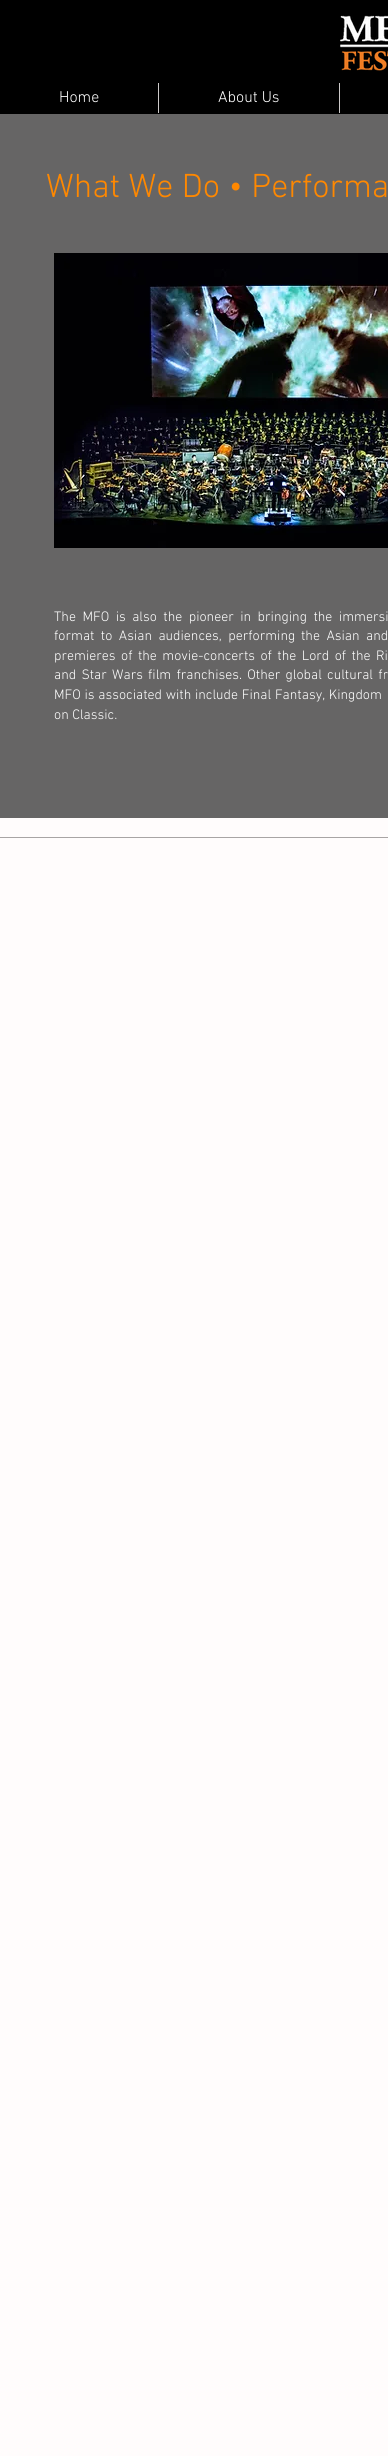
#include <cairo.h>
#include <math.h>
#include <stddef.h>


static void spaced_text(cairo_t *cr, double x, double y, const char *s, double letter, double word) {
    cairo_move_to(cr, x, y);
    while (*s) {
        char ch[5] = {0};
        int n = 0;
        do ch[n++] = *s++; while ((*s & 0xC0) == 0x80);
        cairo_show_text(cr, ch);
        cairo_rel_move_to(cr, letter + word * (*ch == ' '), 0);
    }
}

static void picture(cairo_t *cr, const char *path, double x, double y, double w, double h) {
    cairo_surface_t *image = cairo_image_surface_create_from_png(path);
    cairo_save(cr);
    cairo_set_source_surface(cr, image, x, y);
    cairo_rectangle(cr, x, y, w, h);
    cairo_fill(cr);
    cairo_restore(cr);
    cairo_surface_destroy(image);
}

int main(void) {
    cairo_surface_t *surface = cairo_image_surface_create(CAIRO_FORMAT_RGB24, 388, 2456);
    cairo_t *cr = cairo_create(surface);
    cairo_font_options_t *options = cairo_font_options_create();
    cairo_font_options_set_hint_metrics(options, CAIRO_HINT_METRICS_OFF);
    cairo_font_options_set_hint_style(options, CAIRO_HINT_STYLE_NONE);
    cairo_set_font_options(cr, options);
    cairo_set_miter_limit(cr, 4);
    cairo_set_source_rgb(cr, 1, 0.988, 0.988);
    cairo_paint(cr);
    cairo_set_source_rgb(cr, 0, 0, 0);
    cairo_rectangle(cr, 0, 0, 388, 114);
    cairo_fill(cr);
    picture(cr, "img1.png", 340, 15, 48, 56);
    cairo_select_font_face(cr, "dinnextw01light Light", CAIRO_FONT_SLANT_NORMAL, CAIRO_FONT_WEIGHT_NORMAL);
    cairo_set_font_size(cr, 16);
    cairo_set_source_rgb(cr, 1, 1, 1);
    cairo_move_to(cr, 59, 102);
    cairo_show_text(cr, "Home");
    cairo_set_source_rgb(cr, 0.8, 0.788, 0.788);
    cairo_rectangle(cr, 158, 83, 1, 30);
    cairo_fill(cr);
    cairo_set_source_rgb(cr, 1, 1, 1);
    cairo_move_to(cr, 218, 102);
    cairo_show_text(cr, "About Us");
    cairo_set_source_rgb(cr, 0.8, 0.788, 0.788);
    cairo_rectangle(cr, 339, 83, 1, 30);
    cairo_fill(cr);
    cairo_set_source_rgb(cr, 0.4, 0.396, 0.396);
    cairo_rectangle(cr, 0, 114, 388, 704);
    cairo_fill(cr);
    cairo_set_font_size(cr, 34);
    cairo_set_source_rgb(cr, 1, 0.533, 0);
    cairo_move_to(cr, 46, 197);
    cairo_show_text(cr, "What We Do • Performa");
    picture(cr, "img2.png", 54, 253, 334, 295);
    cairo_set_font_size(cr, 14);
    cairo_set_source_rgb(cr, 1, 1, 1);
    spaced_text(cr, 54, 621, "The MFO is also the pioneer in bringing the immersi", 0, 3);
    spaced_text(cr, 54, 640, "format to Asian audiences, performing", 0, 3);
    spaced_text(cr, 301, 640, "the Asian and", 0, 3);
    spaced_text(cr, 54, 660, "premieres of the movie-concerts of the Lord of the Ri", 0, 2);
    spaced_text(cr, 54, 679, "and Star Wars", 0, 1.75);
    spaced_text(cr, 148, 679, "film franchises. Other global cultural fr", 0, 1.75);
    spaced_text(cr, 54, 699, "MFO is associated with include Final Fantasy, Kingdom", 0, 0.25);
    cairo_move_to(cr, 54, 719);
    cairo_show_text(cr, "on Classic.");
    cairo_set_source_rgb(cr, 0.659, 0.643, 0.643);
    cairo_rectangle(cr, 0, 837, 388, 1);
    cairo_fill(cr);
    cairo_surface_write_to_png(surface, "page.png");
    cairo_font_options_destroy(options);
    cairo_destroy(cr);
    cairo_surface_destroy(surface);
    return 0;
}
